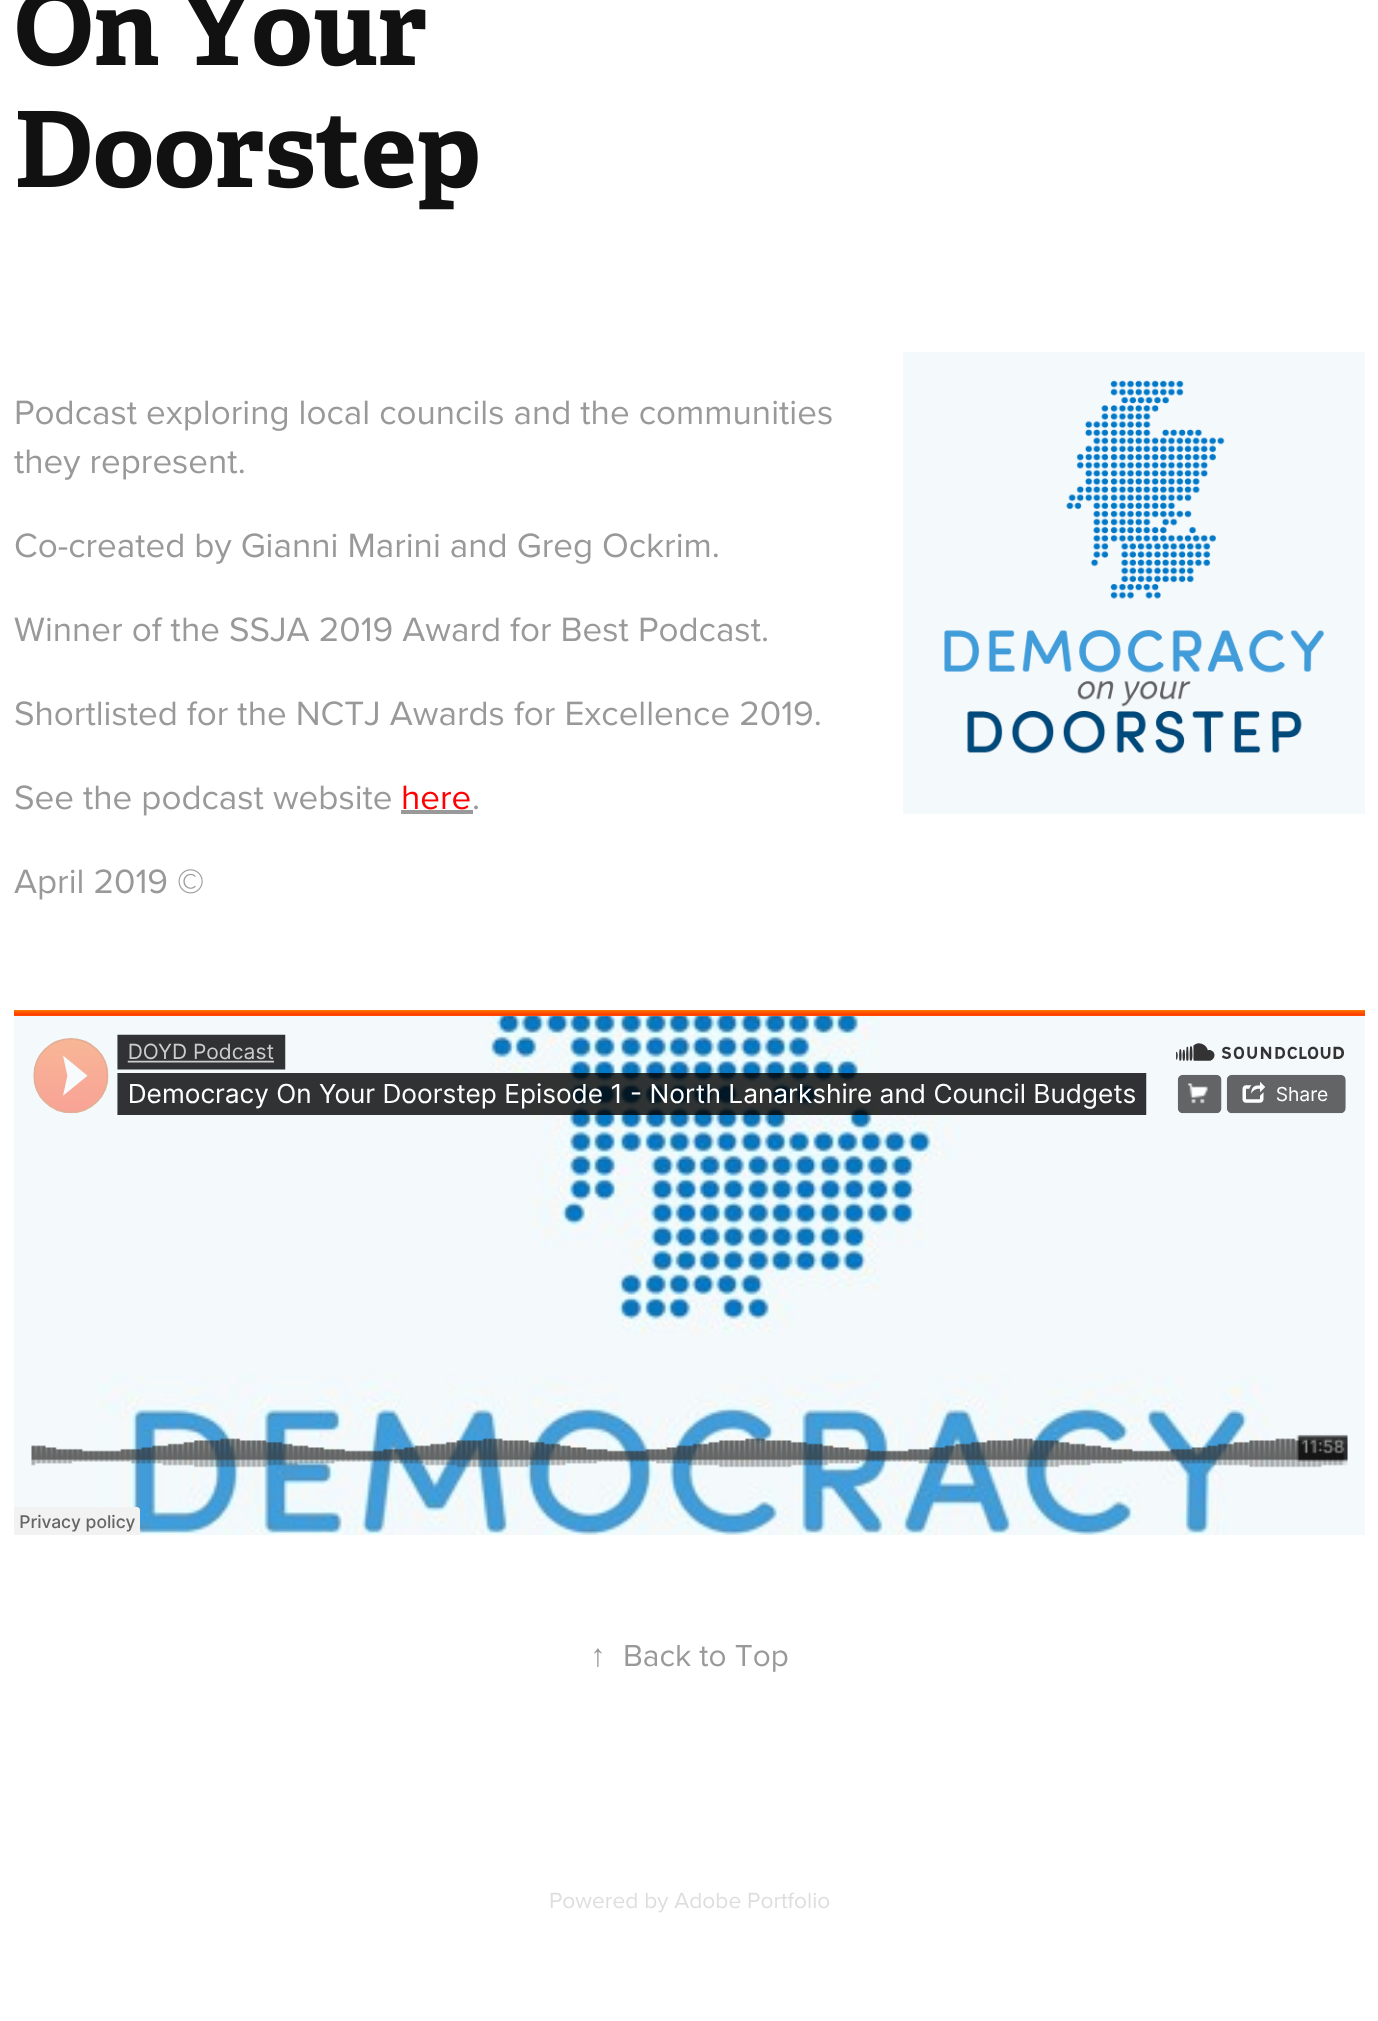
#include <cairo.h>
#include <math.h>
#include <stddef.h>


static void picture(cairo_t *cr, const char *path, double x, double y, double w, double h) {
    cairo_surface_t *image = cairo_image_surface_create_from_png(path);
    cairo_save(cr);
    cairo_set_source_surface(cr, image, x, y);
    cairo_rectangle(cr, x, y, w, h);
    cairo_fill(cr);
    cairo_restore(cr);
    cairo_surface_destroy(image);
}

int main(void) {
    cairo_surface_t *surface = cairo_image_surface_create(CAIRO_FORMAT_RGB24, 1378, 2021);
    cairo_t *cr = cairo_create(surface);
    cairo_font_options_t *options = cairo_font_options_create();
    cairo_font_options_set_hint_metrics(options, CAIRO_HINT_METRICS_OFF);
    cairo_font_options_set_hint_style(options, CAIRO_HINT_STYLE_NONE);
    cairo_set_font_options(cr, options);
    cairo_set_miter_limit(cr, 4);
    cairo_set_source_rgb(cr, 1, 1, 1);
    cairo_paint(cr);
    cairo_select_font_face(cr, "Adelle", CAIRO_FONT_SLANT_NORMAL, CAIRO_FONT_WEIGHT_BOLD);
    cairo_set_font_size(cr, 105);
    cairo_set_source_rgb(cr, 0.067, 0.067, 0.067);
    cairo_move_to(cr, 14, 65);
    cairo_show_text(cr, "On Your");
    cairo_move_to(cr, 14, 187);
    cairo_show_text(cr, "Doorstep");
    cairo_select_font_face(cr, "Proxima Nova", CAIRO_FONT_SLANT_NORMAL, CAIRO_FONT_WEIGHT_NORMAL);
    cairo_set_font_size(cr, 35);
    cairo_set_source_rgb(cr, 0.6, 0.6, 0.6);
    cairo_move_to(cr, 14, 424);
    cairo_show_text(cr, "Podcast exploring local councils and the communities");
    cairo_move_to(cr, 14, 473);
    cairo_show_text(cr, "they represent.");
    cairo_move_to(cr, 14, 557);
    cairo_show_text(cr, "Co-created by Gianni Marini and Greg Ockrim.");
    cairo_move_to(cr, 14, 641);
    cairo_show_text(cr, "Winner of the SSJA 2019 Award for Best Podcast.");
    cairo_move_to(cr, 14, 725);
    cairo_show_text(cr, "Shortlisted for the NCTJ Awards for Excellence 2019.");
    cairo_move_to(cr, 14, 809);
    cairo_show_text(cr, "See the podcast website");
    cairo_set_source_rgb(cr, 1, 0, 0);
    cairo_move_to(cr, 401, 809);
    cairo_show_text(cr, "here");
    cairo_set_source_rgb(cr, 0.6, 0.6, 0.6);
    cairo_rectangle(cr, 401, 810, 72, 4);
    cairo_fill(cr);
    cairo_move_to(cr, 472, 809);
    cairo_show_text(cr, ".");
    cairo_move_to(cr, 14, 893);
    cairo_show_text(cr, "April 2019 ©");
    picture(cr, "img1.png", 903, 352, 462, 462);
    picture(cr, "img2.png", 14, 1010, 1351, 525);
    cairo_select_font_face(cr, "Liberation Serif", CAIRO_FONT_SLANT_NORMAL, CAIRO_FONT_WEIGHT_NORMAL);
    cairo_set_font_size(cr, 31.5);
    cairo_move_to(cr, 590, 1666);
    cairo_show_text(cr, "↑");
    cairo_select_font_face(cr, "Proxima Nova", CAIRO_FONT_SLANT_NORMAL, CAIRO_FONT_WEIGHT_NORMAL);
    cairo_move_to(cr, 623, 1666);
    cairo_show_text(cr, "Back to Top");
    cairo_set_font_size(cr, 22.75);
    cairo_set_source_rgb(cr, 0.867, 0.867, 0.867);
    cairo_move_to(cr, 549, 1908);
    cairo_show_text(cr, "Powered by Adobe Portfolio");
    cairo_surface_write_to_png(surface, "page.png");
    cairo_font_options_destroy(options);
    cairo_destroy(cr);
    cairo_surface_destroy(surface);
    return 0;
}
